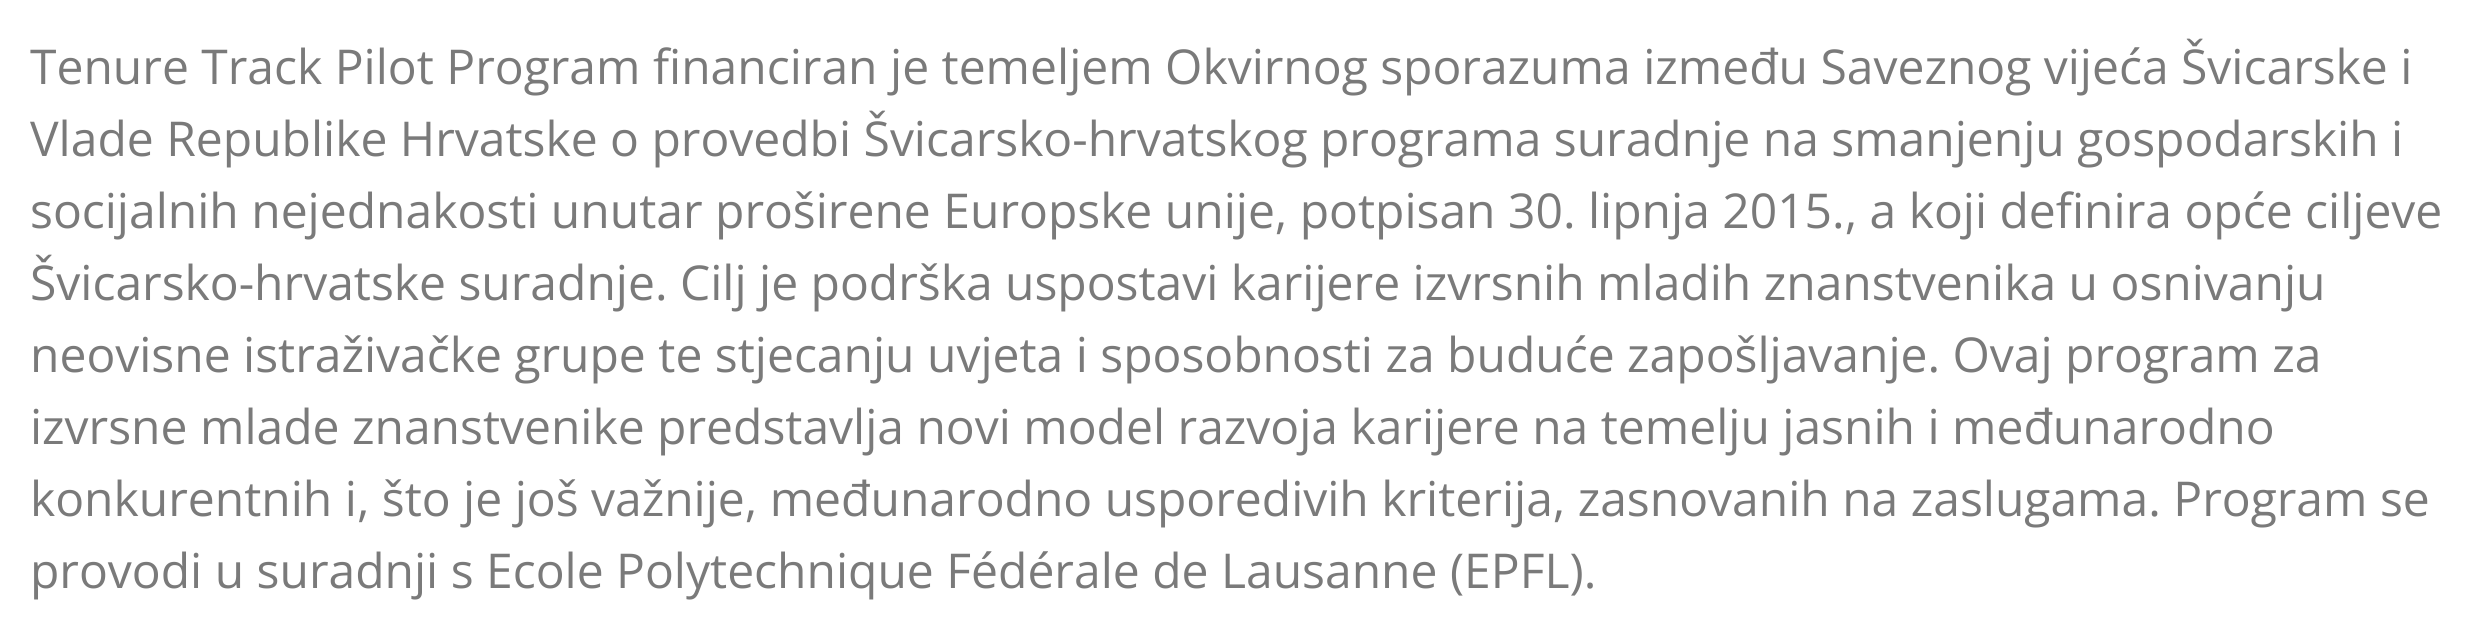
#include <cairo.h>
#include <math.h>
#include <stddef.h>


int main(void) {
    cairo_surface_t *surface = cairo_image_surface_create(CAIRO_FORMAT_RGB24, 2479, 627);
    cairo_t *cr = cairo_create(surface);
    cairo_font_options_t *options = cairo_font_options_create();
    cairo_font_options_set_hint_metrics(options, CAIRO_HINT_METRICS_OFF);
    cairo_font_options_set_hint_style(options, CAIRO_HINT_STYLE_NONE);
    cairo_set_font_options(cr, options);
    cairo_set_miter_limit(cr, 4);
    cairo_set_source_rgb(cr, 1, 1, 1);
    cairo_paint(cr);
    cairo_select_font_face(cr, "Open Sans", CAIRO_FONT_SLANT_NORMAL, CAIRO_FONT_WEIGHT_NORMAL);
    cairo_set_font_size(cr, 48);
    cairo_set_source_rgb(cr, 0.478, 0.478, 0.478);
    cairo_move_to(cr, 30, 84);
    cairo_show_text(cr, "Tenure Track Pilot Program financiran je temeljem Okvirnog sporazuma između Saveznog vijeća Švicarske i");
    cairo_move_to(cr, 30, 156);
    cairo_show_text(cr, "Vlade Republike Hrvatske o provedbi Švicarsko-hrvatskog programa suradnje na smanjenju gospodarskih i");
    cairo_move_to(cr, 30, 228);
    cairo_show_text(cr, "socijalnih nejednakosti unutar proširene Europske unije, potpisan 30. lipnja 2015., a koji definira opće ciljeve");
    cairo_move_to(cr, 30, 300);
    cairo_show_text(cr, "Švicarsko-hrvatske suradnje. Cilj je podrška uspostavi karijere izvrsnih mladih znanstvenika u osnivanju");
    cairo_move_to(cr, 30, 372);
    cairo_show_text(cr, "neovisne istraživačke grupe te stjecanju uvjeta i sposobnosti za buduće zapošljavanje. Ovaj program za");
    cairo_move_to(cr, 30, 444);
    cairo_show_text(cr, "izvrsne mlade znanstvenike predstavlja novi model razvoja karijere na temelju jasnih i međunarodno");
    cairo_move_to(cr, 30, 516);
    cairo_show_text(cr, "konkurentnih i, što je još važnije, međunarodno usporedivih kriterija, zasnovanih na zaslugama. Program se");
    cairo_move_to(cr, 30, 588);
    cairo_show_text(cr, "provodi u suradnji s Ecole Polytechnique Fédérale de Lausanne (EPFL).");
    cairo_surface_write_to_png(surface, "page.png");
    cairo_font_options_destroy(options);
    cairo_destroy(cr);
    cairo_surface_destroy(surface);
    return 0;
}
